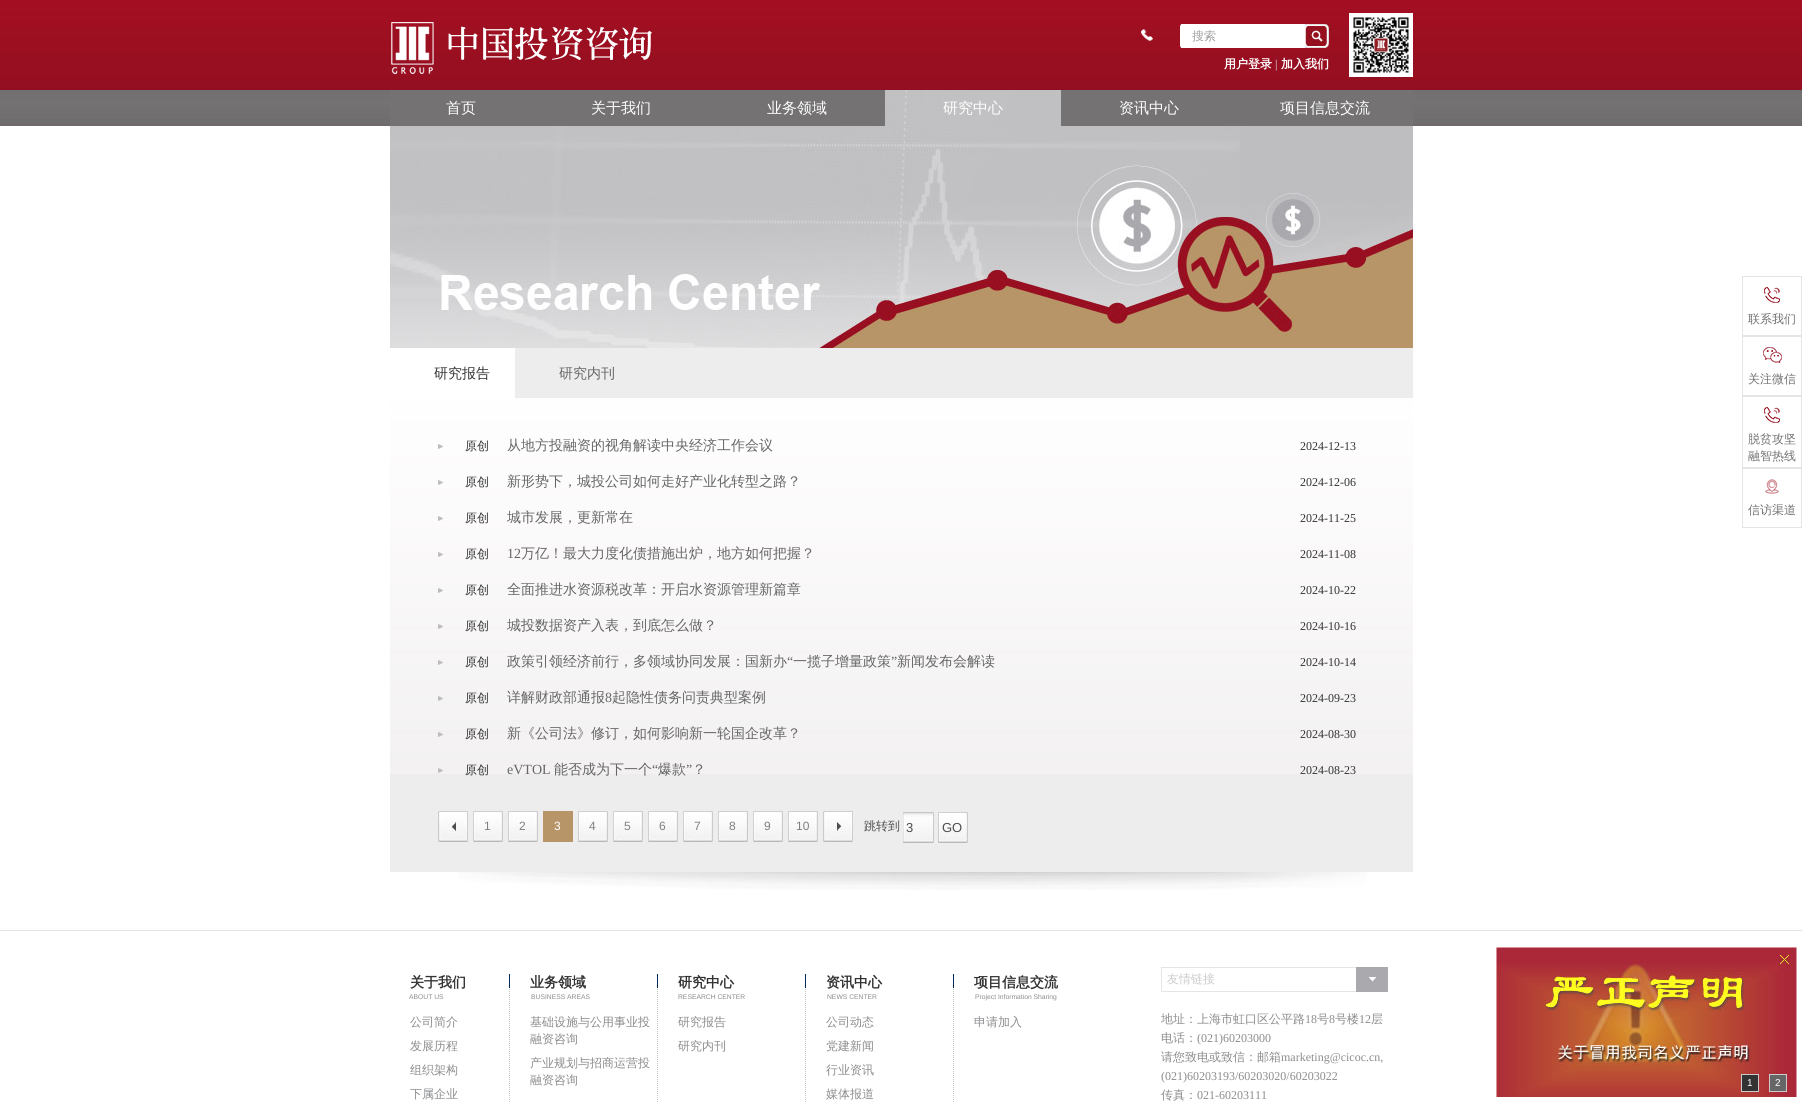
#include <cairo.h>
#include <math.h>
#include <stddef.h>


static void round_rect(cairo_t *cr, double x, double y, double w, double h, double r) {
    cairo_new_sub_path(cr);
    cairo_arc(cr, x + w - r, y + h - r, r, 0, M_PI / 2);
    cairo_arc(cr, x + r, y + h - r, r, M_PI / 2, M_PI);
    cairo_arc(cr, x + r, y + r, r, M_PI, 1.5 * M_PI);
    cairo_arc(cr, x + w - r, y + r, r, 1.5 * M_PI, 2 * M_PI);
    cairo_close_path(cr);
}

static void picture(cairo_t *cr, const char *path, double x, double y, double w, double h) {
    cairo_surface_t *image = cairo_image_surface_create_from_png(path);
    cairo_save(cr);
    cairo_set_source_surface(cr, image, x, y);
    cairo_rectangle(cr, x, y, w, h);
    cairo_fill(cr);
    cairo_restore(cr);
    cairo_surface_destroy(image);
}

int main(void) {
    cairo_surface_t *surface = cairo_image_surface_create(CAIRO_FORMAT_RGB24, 1802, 1102);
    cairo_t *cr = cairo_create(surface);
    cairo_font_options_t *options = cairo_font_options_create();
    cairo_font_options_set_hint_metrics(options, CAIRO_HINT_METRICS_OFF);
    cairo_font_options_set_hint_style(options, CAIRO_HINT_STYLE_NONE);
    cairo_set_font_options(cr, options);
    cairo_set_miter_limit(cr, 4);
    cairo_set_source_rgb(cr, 1, 1, 1);
    cairo_paint(cr);
    picture(cr, "img1.png", 0, 0, 1802, 90);
    picture(cr, "img2.png", 391, 22, 261, 52);
    picture(cr, "img3.png", 1141, 29, 12, 12);
    cairo_save(cr);
    round_rect(cr, 1180, 23, 149, 26, 4);
    cairo_clip(cr);
    cairo_set_source_rgb(cr, 1, 1, 1);
    cairo_rectangle(cr, 1180, 24, 125, 24);
    cairo_fill(cr);
    cairo_restore(cr);
    cairo_select_font_face(cr, "WenQuanYi Zen Hei Medium", CAIRO_FONT_SLANT_NORMAL, CAIRO_FONT_WEIGHT_NORMAL);
    cairo_set_font_size(cr, 12);
    cairo_set_source_rgb(cr, 0.624, 0.627, 0.627);
    cairo_move_to(cr, 1192, 40);
    cairo_show_text(cr, "搜索");
    picture(cr, "img4.png", 1305, 24, 24, 24);
    cairo_select_font_face(cr, "WenQuanYi Zen Hei", CAIRO_FONT_SLANT_NORMAL, CAIRO_FONT_WEIGHT_BOLD);
    cairo_set_source_rgb(cr, 1, 1, 1);
    cairo_move_to(cr, 1224, 68);
    cairo_show_text(cr, "用户登录");
    cairo_select_font_face(cr, "Liberation Serif", CAIRO_FONT_SLANT_NORMAL, CAIRO_FONT_WEIGHT_NORMAL);
    cairo_set_source_rgb(cr, 0.867, 0.867, 0.867);
    cairo_move_to(cr, 1275, 68);
    cairo_show_text(cr, "|");
    cairo_select_font_face(cr, "WenQuanYi Zen Hei", CAIRO_FONT_SLANT_NORMAL, CAIRO_FONT_WEIGHT_BOLD);
    cairo_set_source_rgb(cr, 1, 1, 1);
    cairo_move_to(cr, 1281, 68);
    cairo_show_text(cr, "加入我们");
    picture(cr, "img5.png", 1349, 13, 64, 64);
    picture(cr, "img6.png", 0, 90, 1802, 36);
    picture(cr, "img8.png", 390, 90, 1023, 258);
    cairo_set_source_rgb(cr, 0.455, 0.447, 0.451);
    cairo_rectangle(cr, 390, 90, 495, 36);
    cairo_fill(cr);
    cairo_select_font_face(cr, "WenQuanYi Zen Hei Medium", CAIRO_FONT_SLANT_NORMAL, CAIRO_FONT_WEIGHT_NORMAL);
    cairo_set_font_size(cr, 15);
    cairo_set_source_rgb(cr, 1, 1, 1);
    cairo_move_to(cr, 446, 113);
    cairo_show_text(cr, "首页");
    cairo_move_to(cr, 591, 113);
    cairo_show_text(cr, "关于我们");
    cairo_move_to(cr, 767, 113);
    cairo_show_text(cr, "业务领域");
    cairo_move_to(cr, 943, 113);
    cairo_show_text(cr, "研究中心");
    cairo_set_source_rgb(cr, 0.455, 0.447, 0.451);
    cairo_rectangle(cr, 1061, 90, 352, 36);
    cairo_fill(cr);
    cairo_set_source_rgb(cr, 1, 1, 1);
    cairo_move_to(cr, 1119, 113);
    cairo_show_text(cr, "资讯中心");
    cairo_move_to(cr, 1280, 113);
    cairo_show_text(cr, "项目信息交流");
    picture(cr, "img7.png", 458, 872, 909, 18);
    cairo_set_source_rgb(cr, 0.933, 0.929, 0.929);
    cairo_rectangle(cr, 515, 348, 898, 50);
    cairo_fill(cr);
    cairo_set_font_size(cr, 14);
    cairo_set_source_rgb(cr, 0.2, 0.2, 0.2);
    cairo_move_to(cr, 434, 378);
    cairo_show_text(cr, "研究报告");
    cairo_set_source_rgb(cr, 0.4, 0.4, 0.4);
    cairo_move_to(cr, 559, 378);
    cairo_show_text(cr, "研究内刊");
    cairo_set_source_rgb(cr, 0.933, 0.929, 0.929);
    cairo_rectangle(cr, 390, 774, 1023, 98);
    cairo_fill(cr);
    picture(cr, "img9.png", 390, 398, 1023, 376);
    picture(cr, "img10.png", 438, 444, 5, 5);
    cairo_set_font_size(cr, 12);
    cairo_set_source_rgb(cr, 0.2, 0.2, 0.2);
    cairo_move_to(cr, 465, 450);
    cairo_show_text(cr, "原创");
    cairo_set_font_size(cr, 14);
    cairo_set_source_rgb(cr, 0.4, 0.4, 0.4);
    cairo_move_to(cr, 507, 450);
    cairo_show_text(cr, "从地方投融资的视角解读中央经济工作会议");
    cairo_select_font_face(cr, "Liberation Serif", CAIRO_FONT_SLANT_NORMAL, CAIRO_FONT_WEIGHT_NORMAL);
    cairo_set_font_size(cr, 12);
    cairo_set_source_rgb(cr, 0.2, 0.2, 0.2);
    cairo_move_to(cr, 1300, 450);
    cairo_show_text(cr, "2024-12-13");
    picture(cr, "img11.png", 438, 480, 5, 5);
    cairo_select_font_face(cr, "WenQuanYi Zen Hei Medium", CAIRO_FONT_SLANT_NORMAL, CAIRO_FONT_WEIGHT_NORMAL);
    cairo_move_to(cr, 465, 486);
    cairo_show_text(cr, "原创");
    cairo_set_font_size(cr, 14);
    cairo_set_source_rgb(cr, 0.4, 0.4, 0.4);
    cairo_move_to(cr, 507, 486);
    cairo_show_text(cr, "新形势下，城投公司如何走好产业化转型之路？");
    cairo_select_font_face(cr, "Liberation Serif", CAIRO_FONT_SLANT_NORMAL, CAIRO_FONT_WEIGHT_NORMAL);
    cairo_set_font_size(cr, 12);
    cairo_set_source_rgb(cr, 0.2, 0.2, 0.2);
    cairo_move_to(cr, 1300, 486);
    cairo_show_text(cr, "2024-12-06");
    picture(cr, "img12.png", 438, 516, 5, 5);
    cairo_select_font_face(cr, "WenQuanYi Zen Hei Medium", CAIRO_FONT_SLANT_NORMAL, CAIRO_FONT_WEIGHT_NORMAL);
    cairo_move_to(cr, 465, 522);
    cairo_show_text(cr, "原创");
    cairo_set_font_size(cr, 14);
    cairo_set_source_rgb(cr, 0.4, 0.4, 0.4);
    cairo_move_to(cr, 507, 522);
    cairo_show_text(cr, "城市发展，更新常在");
    cairo_select_font_face(cr, "Liberation Serif", CAIRO_FONT_SLANT_NORMAL, CAIRO_FONT_WEIGHT_NORMAL);
    cairo_set_font_size(cr, 12);
    cairo_set_source_rgb(cr, 0.2, 0.2, 0.2);
    cairo_move_to(cr, 1300, 522);
    cairo_show_text(cr, "2024-11-25");
    picture(cr, "img13.png", 438, 552, 5, 5);
    cairo_select_font_face(cr, "WenQuanYi Zen Hei Medium", CAIRO_FONT_SLANT_NORMAL, CAIRO_FONT_WEIGHT_NORMAL);
    cairo_move_to(cr, 465, 558);
    cairo_show_text(cr, "原创");
    cairo_select_font_face(cr, "Liberation Serif", CAIRO_FONT_SLANT_NORMAL, CAIRO_FONT_WEIGHT_NORMAL);
    cairo_set_font_size(cr, 14);
    cairo_set_source_rgb(cr, 0.4, 0.4, 0.4);
    cairo_move_to(cr, 507, 558);
    cairo_show_text(cr, "12");
    cairo_select_font_face(cr, "WenQuanYi Zen Hei Medium", CAIRO_FONT_SLANT_NORMAL, CAIRO_FONT_WEIGHT_NORMAL);
    cairo_move_to(cr, 521, 558);
    cairo_show_text(cr, "万亿！最大力度化债措施出炉，地方如何把握？");
    cairo_select_font_face(cr, "Liberation Serif", CAIRO_FONT_SLANT_NORMAL, CAIRO_FONT_WEIGHT_NORMAL);
    cairo_set_font_size(cr, 12);
    cairo_set_source_rgb(cr, 0.2, 0.2, 0.2);
    cairo_move_to(cr, 1300, 558);
    cairo_show_text(cr, "2024-11-08");
    picture(cr, "img14.png", 438, 588, 5, 5);
    cairo_select_font_face(cr, "WenQuanYi Zen Hei Medium", CAIRO_FONT_SLANT_NORMAL, CAIRO_FONT_WEIGHT_NORMAL);
    cairo_move_to(cr, 465, 594);
    cairo_show_text(cr, "原创");
    cairo_set_font_size(cr, 14);
    cairo_set_source_rgb(cr, 0.4, 0.4, 0.4);
    cairo_move_to(cr, 507, 594);
    cairo_show_text(cr, "全面推进水资源税改革：开启水资源管理新篇章");
    cairo_select_font_face(cr, "Liberation Serif", CAIRO_FONT_SLANT_NORMAL, CAIRO_FONT_WEIGHT_NORMAL);
    cairo_set_font_size(cr, 12);
    cairo_set_source_rgb(cr, 0.2, 0.2, 0.2);
    cairo_move_to(cr, 1300, 594);
    cairo_show_text(cr, "2024-10-22");
    picture(cr, "img15.png", 438, 624, 5, 5);
    cairo_select_font_face(cr, "WenQuanYi Zen Hei Medium", CAIRO_FONT_SLANT_NORMAL, CAIRO_FONT_WEIGHT_NORMAL);
    cairo_move_to(cr, 465, 630);
    cairo_show_text(cr, "原创");
    cairo_set_font_size(cr, 14);
    cairo_set_source_rgb(cr, 0.4, 0.4, 0.4);
    cairo_move_to(cr, 507, 630);
    cairo_show_text(cr, "城投数据资产入表，到底怎么做？");
    cairo_select_font_face(cr, "Liberation Serif", CAIRO_FONT_SLANT_NORMAL, CAIRO_FONT_WEIGHT_NORMAL);
    cairo_set_font_size(cr, 12);
    cairo_set_source_rgb(cr, 0.2, 0.2, 0.2);
    cairo_move_to(cr, 1300, 630);
    cairo_show_text(cr, "2024-10-16");
    picture(cr, "img16.png", 438, 660, 5, 5);
    cairo_select_font_face(cr, "WenQuanYi Zen Hei Medium", CAIRO_FONT_SLANT_NORMAL, CAIRO_FONT_WEIGHT_NORMAL);
    cairo_move_to(cr, 465, 666);
    cairo_show_text(cr, "原创");
    cairo_set_font_size(cr, 14);
    cairo_set_source_rgb(cr, 0.4, 0.4, 0.4);
    cairo_move_to(cr, 507, 666);
    cairo_show_text(cr, "政策引领经济前行，多领域协同发展：国新办");
    cairo_select_font_face(cr, "Liberation Serif", CAIRO_FONT_SLANT_NORMAL, CAIRO_FONT_WEIGHT_NORMAL);
    cairo_move_to(cr, 787, 666);
    cairo_show_text(cr, "“");
    cairo_select_font_face(cr, "WenQuanYi Zen Hei Medium", CAIRO_FONT_SLANT_NORMAL, CAIRO_FONT_WEIGHT_NORMAL);
    cairo_move_to(cr, 793, 666);
    cairo_show_text(cr, "一揽子增量政策");
    cairo_select_font_face(cr, "Liberation Serif", CAIRO_FONT_SLANT_NORMAL, CAIRO_FONT_WEIGHT_NORMAL);
    cairo_move_to(cr, 891, 666);
    cairo_show_text(cr, "”");
    cairo_select_font_face(cr, "WenQuanYi Zen Hei Medium", CAIRO_FONT_SLANT_NORMAL, CAIRO_FONT_WEIGHT_NORMAL);
    cairo_move_to(cr, 897, 666);
    cairo_show_text(cr, "新闻发布会解读");
    cairo_select_font_face(cr, "Liberation Serif", CAIRO_FONT_SLANT_NORMAL, CAIRO_FONT_WEIGHT_NORMAL);
    cairo_set_font_size(cr, 12);
    cairo_set_source_rgb(cr, 0.2, 0.2, 0.2);
    cairo_move_to(cr, 1300, 666);
    cairo_show_text(cr, "2024-10-14");
    picture(cr, "img17.png", 438, 696, 5, 5);
    cairo_select_font_face(cr, "WenQuanYi Zen Hei Medium", CAIRO_FONT_SLANT_NORMAL, CAIRO_FONT_WEIGHT_NORMAL);
    cairo_move_to(cr, 465, 702);
    cairo_show_text(cr, "原创");
    cairo_set_font_size(cr, 14);
    cairo_set_source_rgb(cr, 0.4, 0.4, 0.4);
    cairo_move_to(cr, 507, 702);
    cairo_show_text(cr, "详解财政部通报");
    cairo_select_font_face(cr, "Liberation Serif", CAIRO_FONT_SLANT_NORMAL, CAIRO_FONT_WEIGHT_NORMAL);
    cairo_move_to(cr, 605, 702);
    cairo_show_text(cr, "8");
    cairo_select_font_face(cr, "WenQuanYi Zen Hei Medium", CAIRO_FONT_SLANT_NORMAL, CAIRO_FONT_WEIGHT_NORMAL);
    cairo_move_to(cr, 612, 702);
    cairo_show_text(cr, "起隐性债务问责典型案例");
    cairo_select_font_face(cr, "Liberation Serif", CAIRO_FONT_SLANT_NORMAL, CAIRO_FONT_WEIGHT_NORMAL);
    cairo_set_font_size(cr, 12);
    cairo_set_source_rgb(cr, 0.2, 0.2, 0.2);
    cairo_move_to(cr, 1300, 702);
    cairo_show_text(cr, "2024-09-23");
    picture(cr, "img18.png", 438, 732, 5, 5);
    cairo_select_font_face(cr, "WenQuanYi Zen Hei Medium", CAIRO_FONT_SLANT_NORMAL, CAIRO_FONT_WEIGHT_NORMAL);
    cairo_move_to(cr, 465, 738);
    cairo_show_text(cr, "原创");
    cairo_set_font_size(cr, 14);
    cairo_set_source_rgb(cr, 0.4, 0.4, 0.4);
    cairo_move_to(cr, 507, 738);
    cairo_show_text(cr, "新《公司法》修订，如何影响新一轮国企改革？");
    cairo_select_font_face(cr, "Liberation Serif", CAIRO_FONT_SLANT_NORMAL, CAIRO_FONT_WEIGHT_NORMAL);
    cairo_set_font_size(cr, 12);
    cairo_set_source_rgb(cr, 0.2, 0.2, 0.2);
    cairo_move_to(cr, 1300, 738);
    cairo_show_text(cr, "2024-08-30");
    picture(cr, "img19.png", 438, 768, 5, 5);
    cairo_select_font_face(cr, "WenQuanYi Zen Hei Medium", CAIRO_FONT_SLANT_NORMAL, CAIRO_FONT_WEIGHT_NORMAL);
    cairo_move_to(cr, 465, 774);
    cairo_show_text(cr, "原创");
    cairo_select_font_face(cr, "Liberation Serif", CAIRO_FONT_SLANT_NORMAL, CAIRO_FONT_WEIGHT_NORMAL);
    cairo_set_font_size(cr, 14);
    cairo_set_source_rgb(cr, 0.4, 0.4, 0.4);
    cairo_move_to(cr, 507, 774);
    cairo_show_text(cr, "eVTOL");
    cairo_select_font_face(cr, "WenQuanYi Zen Hei Medium", CAIRO_FONT_SLANT_NORMAL, CAIRO_FONT_WEIGHT_NORMAL);
    cairo_move_to(cr, 554, 774);
    cairo_show_text(cr, "能否成为下一个");
    cairo_select_font_face(cr, "Liberation Serif", CAIRO_FONT_SLANT_NORMAL, CAIRO_FONT_WEIGHT_NORMAL);
    cairo_move_to(cr, 652, 774);
    cairo_show_text(cr, "“");
    cairo_select_font_face(cr, "WenQuanYi Zen Hei Medium", CAIRO_FONT_SLANT_NORMAL, CAIRO_FONT_WEIGHT_NORMAL);
    cairo_move_to(cr, 658, 774);
    cairo_show_text(cr, "爆款");
    cairo_select_font_face(cr, "Liberation Serif", CAIRO_FONT_SLANT_NORMAL, CAIRO_FONT_WEIGHT_NORMAL);
    cairo_move_to(cr, 686, 774);
    cairo_show_text(cr, "”");
    cairo_select_font_face(cr, "WenQuanYi Zen Hei Medium", CAIRO_FONT_SLANT_NORMAL, CAIRO_FONT_WEIGHT_NORMAL);
    cairo_move_to(cr, 692, 774);
    cairo_show_text(cr, "？");
    cairo_select_font_face(cr, "Liberation Serif", CAIRO_FONT_SLANT_NORMAL, CAIRO_FONT_WEIGHT_NORMAL);
    cairo_set_font_size(cr, 12);
    cairo_set_source_rgb(cr, 0.2, 0.2, 0.2);
    cairo_move_to(cr, 1300, 774);
    cairo_show_text(cr, "2024-08-23");
    picture(cr, "img20.png", 438, 811, 30, 31);
    picture(cr, "img21.png", 473, 811, 30, 31);
    cairo_select_font_face(cr, "Liberation Sans", CAIRO_FONT_SLANT_NORMAL, CAIRO_FONT_WEIGHT_NORMAL);
    cairo_set_source_rgb(cr, 0.498, 0.498, 0.498);
    cairo_move_to(cr, 484, 830);
    cairo_show_text(cr, "1");
    picture(cr, "img21.png", 508, 811, 30, 31);
    cairo_move_to(cr, 519, 830);
    cairo_show_text(cr, "2");
    cairo_set_source_rgb(cr, 0.718, 0.584, 0.408);
    cairo_rectangle(cr, 543, 811, 30, 31);
    cairo_fill(cr);
    cairo_set_source_rgb(cr, 1, 1, 1);
    cairo_move_to(cr, 554, 830);
    cairo_show_text(cr, "3");
    picture(cr, "img21.png", 578, 811, 30, 31);
    cairo_set_source_rgb(cr, 0.498, 0.498, 0.498);
    cairo_move_to(cr, 589, 830);
    cairo_show_text(cr, "4");
    picture(cr, "img21.png", 613, 811, 30, 31);
    cairo_move_to(cr, 624, 830);
    cairo_show_text(cr, "5");
    picture(cr, "img21.png", 648, 811, 30, 31);
    cairo_move_to(cr, 659, 830);
    cairo_show_text(cr, "6");
    picture(cr, "img21.png", 683, 811, 30, 31);
    cairo_move_to(cr, 694, 830);
    cairo_show_text(cr, "7");
    picture(cr, "img21.png", 718, 811, 30, 31);
    cairo_move_to(cr, 729, 830);
    cairo_show_text(cr, "8");
    picture(cr, "img21.png", 753, 811, 30, 31);
    cairo_move_to(cr, 764, 830);
    cairo_show_text(cr, "9");
    picture(cr, "img21.png", 788, 811, 30, 31);
    cairo_move_to(cr, 796, 830);
    cairo_show_text(cr, "10");
    picture(cr, "img22.png", 823, 811, 30, 31);
    cairo_select_font_face(cr, "WenQuanYi Zen Hei Medium", CAIRO_FONT_SLANT_NORMAL, CAIRO_FONT_WEIGHT_NORMAL);
    cairo_set_source_rgb(cr, 0.306, 0.306, 0.306);
    cairo_move_to(cr, 864, 830);
    cairo_show_text(cr, "跳转到");
    picture(cr, "img23.png", 903, 812, 31, 31);
    cairo_select_font_face(cr, "Liberation Sans", CAIRO_FONT_SLANT_NORMAL, CAIRO_FONT_WEIGHT_NORMAL);
    cairo_set_font_size(cr, 13);
    cairo_move_to(cr, 906, 832);
    cairo_show_text(cr, "3");
    picture(cr, "img21.png", 938, 812, 30, 31);
    cairo_move_to(cr, 942, 832);
    cairo_show_text(cr, "GO");
    cairo_rectangle(cr, 1742.5, 276.5, 59, 59);
    cairo_set_source_rgb(cr, 0.898, 0.898, 0.898);
    cairo_set_line_width(cr, 1);
    cairo_stroke(cr);
    picture(cr, "img24.png", 1764, 287, 16, 16);
    cairo_select_font_face(cr, "WenQuanYi Zen Hei Medium", CAIRO_FONT_SLANT_NORMAL, CAIRO_FONT_WEIGHT_NORMAL);
    cairo_set_font_size(cr, 12);
    cairo_set_source_rgb(cr, 0.447, 0.439, 0.443);
    cairo_move_to(cr, 1748, 323);
    cairo_show_text(cr, "联系我们");
    cairo_rectangle(cr, 1742.5, 336.5, 59, 59);
    cairo_set_source_rgb(cr, 0.898, 0.898, 0.898);
    cairo_stroke(cr);
    picture(cr, "img25.png", 1763, 347, 19, 16);
    cairo_set_source_rgb(cr, 0.447, 0.439, 0.443);
    cairo_move_to(cr, 1748, 383);
    cairo_show_text(cr, "关注微信");
    cairo_rectangle(cr, 1742.5, 396.5, 59, 71);
    cairo_set_source_rgb(cr, 0.898, 0.898, 0.898);
    cairo_stroke(cr);
    picture(cr, "img24.png", 1764, 407, 16, 16);
    cairo_set_source_rgb(cr, 0.447, 0.439, 0.443);
    cairo_move_to(cr, 1748, 443);
    cairo_show_text(cr, "脱贫攻坚");
    cairo_move_to(cr, 1748, 460);
    cairo_show_text(cr, "融智热线");
    cairo_rectangle(cr, 1742.5, 468.5, 59, 59);
    cairo_set_source_rgb(cr, 0.898, 0.898, 0.898);
    cairo_stroke(cr);
    picture(cr, "img26.png", 1765, 479, 14, 15);
    cairo_set_source_rgb(cr, 0.447, 0.439, 0.443);
    cairo_move_to(cr, 1748, 514);
    cairo_show_text(cr, "信访渠道");
    cairo_set_source_rgb(cr, 0.894, 0.894, 0.894);
    cairo_rectangle(cr, 0, 930, 1802, 1);
    cairo_fill(cr);
    picture(cr, "img27.png", 509, 988, 1, 114);
    cairo_set_source_rgb(cr, 0, 0.157, 0.349);
    cairo_rectangle(cr, 509, 974, 1, 14);
    cairo_fill(cr);
    cairo_select_font_face(cr, "WenQuanYi Zen Hei", CAIRO_FONT_SLANT_NORMAL, CAIRO_FONT_WEIGHT_BOLD);
    cairo_set_font_size(cr, 14);
    cairo_set_source_rgb(cr, 0.2, 0.2, 0.2);
    cairo_move_to(cr, 410, 987);
    cairo_show_text(cr, "关于我们");
    cairo_select_font_face(cr, "Liberation Sans", CAIRO_FONT_SLANT_NORMAL, CAIRO_FONT_WEIGHT_NORMAL);
    cairo_set_font_size(cr, 6.75);
    cairo_set_source_rgb(cr, 0.545, 0.549, 0.557);
    cairo_move_to(cr, 409, 999);
    cairo_show_text(cr, "ABOUT US");
    cairo_select_font_face(cr, "WenQuanYi Zen Hei Medium", CAIRO_FONT_SLANT_NORMAL, CAIRO_FONT_WEIGHT_NORMAL);
    cairo_set_font_size(cr, 12);
    cairo_move_to(cr, 410, 1026);
    cairo_show_text(cr, "公司简介");
    cairo_move_to(cr, 410, 1050);
    cairo_show_text(cr, "发展历程");
    cairo_move_to(cr, 410, 1074);
    cairo_show_text(cr, "组织架构");
    cairo_move_to(cr, 410, 1098);
    cairo_show_text(cr, "下属企业");
    picture(cr, "img27.png", 657, 988, 1, 114);
    cairo_set_source_rgb(cr, 0, 0.157, 0.349);
    cairo_rectangle(cr, 657, 974, 1, 14);
    cairo_fill(cr);
    cairo_select_font_face(cr, "WenQuanYi Zen Hei", CAIRO_FONT_SLANT_NORMAL, CAIRO_FONT_WEIGHT_BOLD);
    cairo_set_font_size(cr, 14);
    cairo_set_source_rgb(cr, 0.2, 0.2, 0.2);
    cairo_move_to(cr, 530, 987);
    cairo_show_text(cr, "业务领域");
    cairo_select_font_face(cr, "Liberation Sans", CAIRO_FONT_SLANT_NORMAL, CAIRO_FONT_WEIGHT_NORMAL);
    cairo_set_font_size(cr, 6.75);
    cairo_set_source_rgb(cr, 0.545, 0.549, 0.557);
    cairo_move_to(cr, 531, 999);
    cairo_show_text(cr, "BUSINESS AREAS");
    cairo_select_font_face(cr, "WenQuanYi Zen Hei Medium", CAIRO_FONT_SLANT_NORMAL, CAIRO_FONT_WEIGHT_NORMAL);
    cairo_set_font_size(cr, 12);
    cairo_move_to(cr, 530, 1026);
    cairo_show_text(cr, "基础设施与公用事业投");
    cairo_move_to(cr, 530, 1043);
    cairo_show_text(cr, "融资咨询");
    cairo_move_to(cr, 530, 1067);
    cairo_show_text(cr, "产业规划与招商运营投");
    cairo_move_to(cr, 530, 1084);
    cairo_show_text(cr, "融资咨询");
    picture(cr, "img27.png", 805, 988, 1, 114);
    cairo_set_source_rgb(cr, 0, 0.157, 0.349);
    cairo_rectangle(cr, 805, 974, 1, 14);
    cairo_fill(cr);
    cairo_select_font_face(cr, "WenQuanYi Zen Hei", CAIRO_FONT_SLANT_NORMAL, CAIRO_FONT_WEIGHT_BOLD);
    cairo_set_font_size(cr, 14);
    cairo_set_source_rgb(cr, 0.2, 0.2, 0.2);
    cairo_move_to(cr, 678, 987);
    cairo_show_text(cr, "研究中心");
    cairo_select_font_face(cr, "Liberation Sans", CAIRO_FONT_SLANT_NORMAL, CAIRO_FONT_WEIGHT_NORMAL);
    cairo_set_font_size(cr, 6.75);
    cairo_set_source_rgb(cr, 0.545, 0.549, 0.557);
    cairo_move_to(cr, 678, 999);
    cairo_show_text(cr, "RESEARCH CENTER");
    cairo_select_font_face(cr, "WenQuanYi Zen Hei Medium", CAIRO_FONT_SLANT_NORMAL, CAIRO_FONT_WEIGHT_NORMAL);
    cairo_set_font_size(cr, 12);
    cairo_move_to(cr, 678, 1026);
    cairo_show_text(cr, "研究报告");
    cairo_move_to(cr, 678, 1050);
    cairo_show_text(cr, "研究内刊");
    picture(cr, "img27.png", 953, 988, 1, 114);
    cairo_set_source_rgb(cr, 0, 0.157, 0.349);
    cairo_rectangle(cr, 953, 974, 1, 14);
    cairo_fill(cr);
    cairo_select_font_face(cr, "WenQuanYi Zen Hei", CAIRO_FONT_SLANT_NORMAL, CAIRO_FONT_WEIGHT_BOLD);
    cairo_set_font_size(cr, 14);
    cairo_set_source_rgb(cr, 0.2, 0.2, 0.2);
    cairo_move_to(cr, 826, 987);
    cairo_show_text(cr, "资讯中心");
    cairo_select_font_face(cr, "Liberation Sans", CAIRO_FONT_SLANT_NORMAL, CAIRO_FONT_WEIGHT_NORMAL);
    cairo_set_font_size(cr, 6.75);
    cairo_set_source_rgb(cr, 0.545, 0.549, 0.557);
    cairo_move_to(cr, 827, 999);
    cairo_show_text(cr, "NEWS CENTER");
    cairo_select_font_face(cr, "WenQuanYi Zen Hei Medium", CAIRO_FONT_SLANT_NORMAL, CAIRO_FONT_WEIGHT_NORMAL);
    cairo_set_font_size(cr, 12);
    cairo_move_to(cr, 826, 1026);
    cairo_show_text(cr, "公司动态");
    cairo_move_to(cr, 826, 1050);
    cairo_show_text(cr, "党建新闻");
    cairo_move_to(cr, 826, 1074);
    cairo_show_text(cr, "行业资讯");
    cairo_move_to(cr, 826, 1098);
    cairo_show_text(cr, "媒体报道");
    cairo_select_font_face(cr, "WenQuanYi Zen Hei", CAIRO_FONT_SLANT_NORMAL, CAIRO_FONT_WEIGHT_BOLD);
    cairo_set_font_size(cr, 14);
    cairo_set_source_rgb(cr, 0.2, 0.2, 0.2);
    cairo_move_to(cr, 974, 987);
    cairo_show_text(cr, "项目信息交流");
    cairo_select_font_face(cr, "Liberation Sans", CAIRO_FONT_SLANT_NORMAL, CAIRO_FONT_WEIGHT_NORMAL);
    cairo_set_font_size(cr, 6.75);
    cairo_set_source_rgb(cr, 0.545, 0.549, 0.557);
    cairo_move_to(cr, 975, 999);
    cairo_show_text(cr, "Project Information Sharing");
    cairo_select_font_face(cr, "WenQuanYi Zen Hei Medium", CAIRO_FONT_SLANT_NORMAL, CAIRO_FONT_WEIGHT_NORMAL);
    cairo_set_font_size(cr, 12);
    cairo_move_to(cr, 974, 1026);
    cairo_show_text(cr, "申请加入");
    picture(cr, "img28.png", 1161, 967, 227, 25);
    cairo_set_source_rgb(cr, 0.796, 0.796, 0.796);
    cairo_move_to(cr, 1167, 983);
    cairo_show_text(cr, "友情链接");
    cairo_set_source_rgb(cr, 0.545, 0.549, 0.557);
    cairo_move_to(cr, 1161, 1023);
    cairo_show_text(cr, "地址：上海市虹口区公平路");
    cairo_select_font_face(cr, "Liberation Serif", CAIRO_FONT_SLANT_NORMAL, CAIRO_FONT_WEIGHT_NORMAL);
    cairo_move_to(cr, 1305, 1023);
    cairo_show_text(cr, "18");
    cairo_select_font_face(cr, "WenQuanYi Zen Hei Medium", CAIRO_FONT_SLANT_NORMAL, CAIRO_FONT_WEIGHT_NORMAL);
    cairo_move_to(cr, 1317, 1023);
    cairo_show_text(cr, "号");
    cairo_select_font_face(cr, "Liberation Serif", CAIRO_FONT_SLANT_NORMAL, CAIRO_FONT_WEIGHT_NORMAL);
    cairo_move_to(cr, 1329, 1023);
    cairo_show_text(cr, "8");
    cairo_select_font_face(cr, "WenQuanYi Zen Hei Medium", CAIRO_FONT_SLANT_NORMAL, CAIRO_FONT_WEIGHT_NORMAL);
    cairo_move_to(cr, 1335, 1023);
    cairo_show_text(cr, "号楼");
    cairo_select_font_face(cr, "Liberation Serif", CAIRO_FONT_SLANT_NORMAL, CAIRO_FONT_WEIGHT_NORMAL);
    cairo_move_to(cr, 1359, 1023);
    cairo_show_text(cr, "12");
    cairo_select_font_face(cr, "WenQuanYi Zen Hei Medium", CAIRO_FONT_SLANT_NORMAL, CAIRO_FONT_WEIGHT_NORMAL);
    cairo_move_to(cr, 1371, 1023);
    cairo_show_text(cr, "层");
    cairo_move_to(cr, 1161, 1042);
    cairo_show_text(cr, "电话：");
    cairo_select_font_face(cr, "Liberation Serif", CAIRO_FONT_SLANT_NORMAL, CAIRO_FONT_WEIGHT_NORMAL);
    cairo_move_to(cr, 1197, 1042);
    cairo_show_text(cr, "(021)60203000");
    cairo_select_font_face(cr, "WenQuanYi Zen Hei Medium", CAIRO_FONT_SLANT_NORMAL, CAIRO_FONT_WEIGHT_NORMAL);
    cairo_move_to(cr, 1161, 1061);
    cairo_show_text(cr, "请您致电或致信：邮箱");
    cairo_select_font_face(cr, "Liberation Serif", CAIRO_FONT_SLANT_NORMAL, CAIRO_FONT_WEIGHT_NORMAL);
    cairo_move_to(cr, 1281, 1061);
    cairo_show_text(cr, "marketing@cicoc.cn,");
    cairo_move_to(cr, 1161, 1080);
    cairo_show_text(cr, "(021)60203193/60203020/60203022");
    cairo_select_font_face(cr, "WenQuanYi Zen Hei Medium", CAIRO_FONT_SLANT_NORMAL, CAIRO_FONT_WEIGHT_NORMAL);
    cairo_move_to(cr, 1161, 1099);
    cairo_show_text(cr, "传真：");
    cairo_select_font_face(cr, "Liberation Serif", CAIRO_FONT_SLANT_NORMAL, CAIRO_FONT_WEIGHT_NORMAL);
    cairo_move_to(cr, 1197, 1099);
    cairo_show_text(cr, "021-60203111");
    picture(cr, "img29.png", 1496, 947, 301, 150);
    cairo_set_source_rgb(cr, 0.2, 0.2, 0.2);
    cairo_rectangle(cr, 1741.5, 1074.5, 17, 17);
    cairo_fill_preserve(cr);
    cairo_set_source_rgb(cr, 0.8, 0.8, 0.8);
    cairo_stroke(cr);
    cairo_select_font_face(cr, "Liberation Sans", CAIRO_FONT_SLANT_NORMAL, CAIRO_FONT_WEIGHT_NORMAL);
    cairo_set_font_size(cr, 10);
    cairo_set_source_rgb(cr, 1, 1, 1);
    cairo_move_to(cr, 1747, 1086);
    cairo_show_text(cr, "1");
    cairo_set_source_rgb(cr, 0.4, 0.4, 0.4);
    cairo_rectangle(cr, 1769.5, 1074.5, 17, 17);
    cairo_fill_preserve(cr);
    cairo_set_source_rgb(cr, 0.8, 0.8, 0.8);
    cairo_stroke(cr);
    cairo_set_source_rgb(cr, 1, 1, 1);
    cairo_move_to(cr, 1775, 1086);
    cairo_show_text(cr, "2");
    cairo_surface_write_to_png(surface, "page.png");
    cairo_font_options_destroy(options);
    cairo_destroy(cr);
    cairo_surface_destroy(surface);
    return 0;
}
